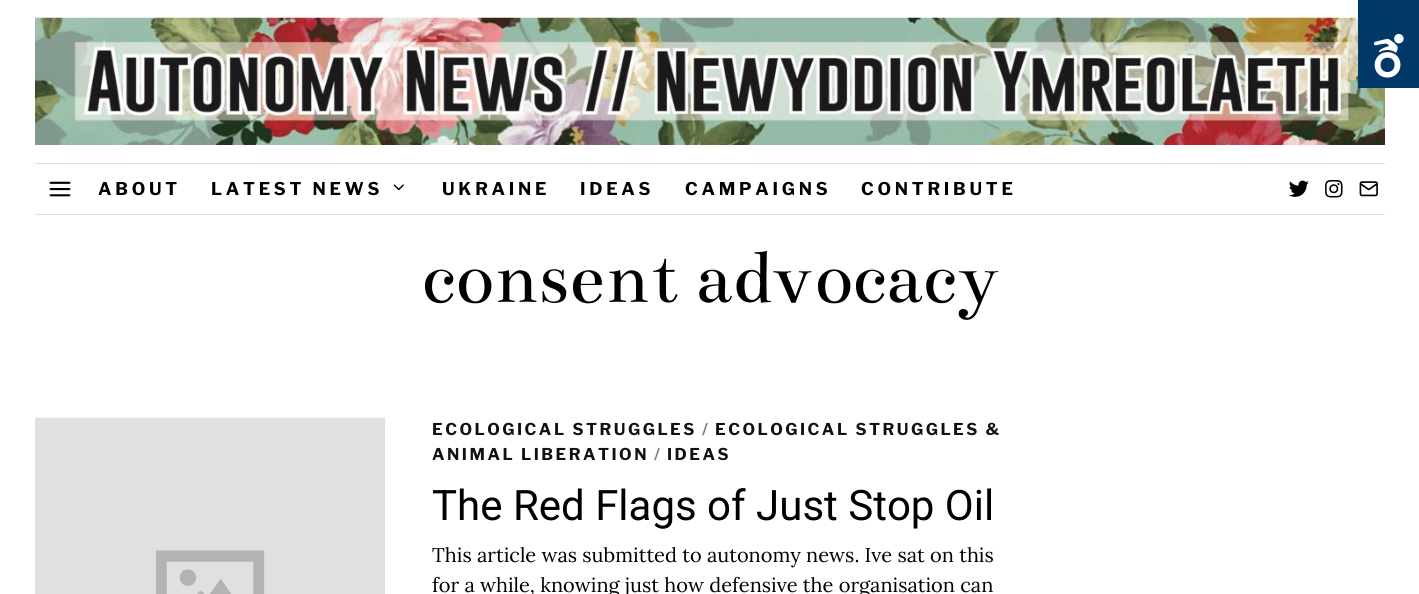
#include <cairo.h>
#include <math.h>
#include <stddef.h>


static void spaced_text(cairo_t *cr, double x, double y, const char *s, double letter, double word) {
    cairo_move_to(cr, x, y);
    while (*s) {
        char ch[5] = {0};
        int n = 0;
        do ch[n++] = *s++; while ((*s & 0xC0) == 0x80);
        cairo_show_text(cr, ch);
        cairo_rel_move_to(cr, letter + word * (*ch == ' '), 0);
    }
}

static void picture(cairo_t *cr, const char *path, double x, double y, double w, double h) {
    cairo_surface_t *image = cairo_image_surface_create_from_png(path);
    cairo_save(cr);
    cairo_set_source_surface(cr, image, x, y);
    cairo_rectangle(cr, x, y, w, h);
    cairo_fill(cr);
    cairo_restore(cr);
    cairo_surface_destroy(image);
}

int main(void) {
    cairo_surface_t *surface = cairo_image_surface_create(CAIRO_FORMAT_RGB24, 1419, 594);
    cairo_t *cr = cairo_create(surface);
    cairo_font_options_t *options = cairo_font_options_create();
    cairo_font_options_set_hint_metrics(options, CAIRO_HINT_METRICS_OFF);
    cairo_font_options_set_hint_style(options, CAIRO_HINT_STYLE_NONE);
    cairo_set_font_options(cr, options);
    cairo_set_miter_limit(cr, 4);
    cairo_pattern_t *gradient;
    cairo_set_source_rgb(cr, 1, 1, 1);
    cairo_paint(cr);
    picture(cr, "img2.png", 35, 17, 1350, 128);
    gradient = cairo_pattern_create_linear(1417, 191, 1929, -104);
    cairo_pattern_add_color_stop_rgba(gradient, 0, 0, 0.227, 0.42, 1);
    cairo_pattern_add_color_stop_rgba(gradient, 1, 0, 0.149, 0.275, 1);
    cairo_set_source(cr, gradient);
    cairo_pattern_destroy(gradient);
    cairo_rectangle(cr, 1358, 0, 61, 88);
    cairo_fill(cr);
    picture(cr, "img1.png", 1373, 33, 31, 45);
    cairo_set_source_rgb(cr, 0.878, 0.878, 0.878);
    cairo_rectangle(cr, 35, 163, 1350, 1);
    cairo_fill(cr);
    cairo_rectangle(cr, 35, 214, 1350, 1);
    cairo_fill(cr);
    picture(cr, "img3.png", 49, 181, 22, 16);
    cairo_select_font_face(cr, "Libre Franklin", CAIRO_FONT_SLANT_NORMAL, CAIRO_FONT_WEIGHT_BOLD);
    cairo_set_font_size(cr, 17.5);
    cairo_set_source_rgb(cr, 0, 0, 0);
    spaced_text(cr, 98, 195, "ABOUT", 3.75, 0);
    spaced_text(cr, 211, 195, "LATEST NEWS", 3.75, 0);
    picture(cr, "img4.png", 393, 184, 11, 7);
    spaced_text(cr, 442, 195, "UKRAINE", 3.75, 0);
    spaced_text(cr, 580, 195, "IDEAS", 3.75, 0);
    spaced_text(cr, 685, 195, "CAMPAIGNS", 3.75, 0);
    spaced_text(cr, 861, 195, "CONTRIBUTE", 3.75, 0);
    picture(cr, "img5.png", 1289, 180, 20, 17);
    picture(cr, "img6.png", 1325, 180, 18, 18);
    picture(cr, "img7.png", 1359, 181, 19, 16);
    cairo_select_font_face(cr, "Bentham", CAIRO_FONT_SLANT_NORMAL, CAIRO_FONT_WEIGHT_NORMAL);
    cairo_set_font_size(cr, 80);
    cairo_move_to(cr, 421, 302);
    cairo_show_text(cr, "consent advocacy");
    picture(cr, "img8.png", 35, 417, 350, 177);
    cairo_select_font_face(cr, "Libre Franklin", CAIRO_FONT_SLANT_NORMAL, CAIRO_FONT_WEIGHT_BOLD);
    cairo_set_font_size(cr, 16.25);
    cairo_set_source_rgb(cr, 0.067, 0.067, 0.067);
    spaced_text(cr, 432, 435, "ECOLOGICAL STRUGGLES", 2.5, 0);
    cairo_set_source_rgb(cr, 0.502, 0.502, 0.502);
    spaced_text(cr, 702, 435, "/", 2.5, 0);
    cairo_set_source_rgb(cr, 0.067, 0.067, 0.067);
    spaced_text(cr, 715, 435, "ECOLOGICAL STRUGGLES &", 2.5, 0);
    spaced_text(cr, 432, 460, "ANIMAL LIBERATION", 2.5, 0);
    cairo_set_source_rgb(cr, 0.502, 0.502, 0.502);
    spaced_text(cr, 654, 460, "/", 2.5, 0);
    cairo_set_source_rgb(cr, 0.067, 0.067, 0.067);
    spaced_text(cr, 667, 460, "IDEAS", 2.5, 0);
    cairo_select_font_face(cr, "Roboto", CAIRO_FONT_SLANT_NORMAL, CAIRO_FONT_WEIGHT_NORMAL);
    cairo_set_font_size(cr, 42);
    cairo_set_source_rgb(cr, 0, 0, 0);
    cairo_move_to(cr, 432, 520);
    cairo_show_text(cr, "The Red Flags of Just Stop Oil");
    cairo_select_font_face(cr, "Lora", CAIRO_FONT_SLANT_NORMAL, CAIRO_FONT_WEIGHT_NORMAL);
    cairo_set_font_size(cr, 20);
    cairo_move_to(cr, 432, 562);
    cairo_show_text(cr, "This article was submitted to autonomy news. Ive sat on this");
    cairo_move_to(cr, 432, 592);
    cairo_show_text(cr, "for a while, knowing just how defensive the organisation can");
    cairo_surface_write_to_png(surface, "page.png");
    cairo_font_options_destroy(options);
    cairo_destroy(cr);
    cairo_surface_destroy(surface);
    return 0;
}
